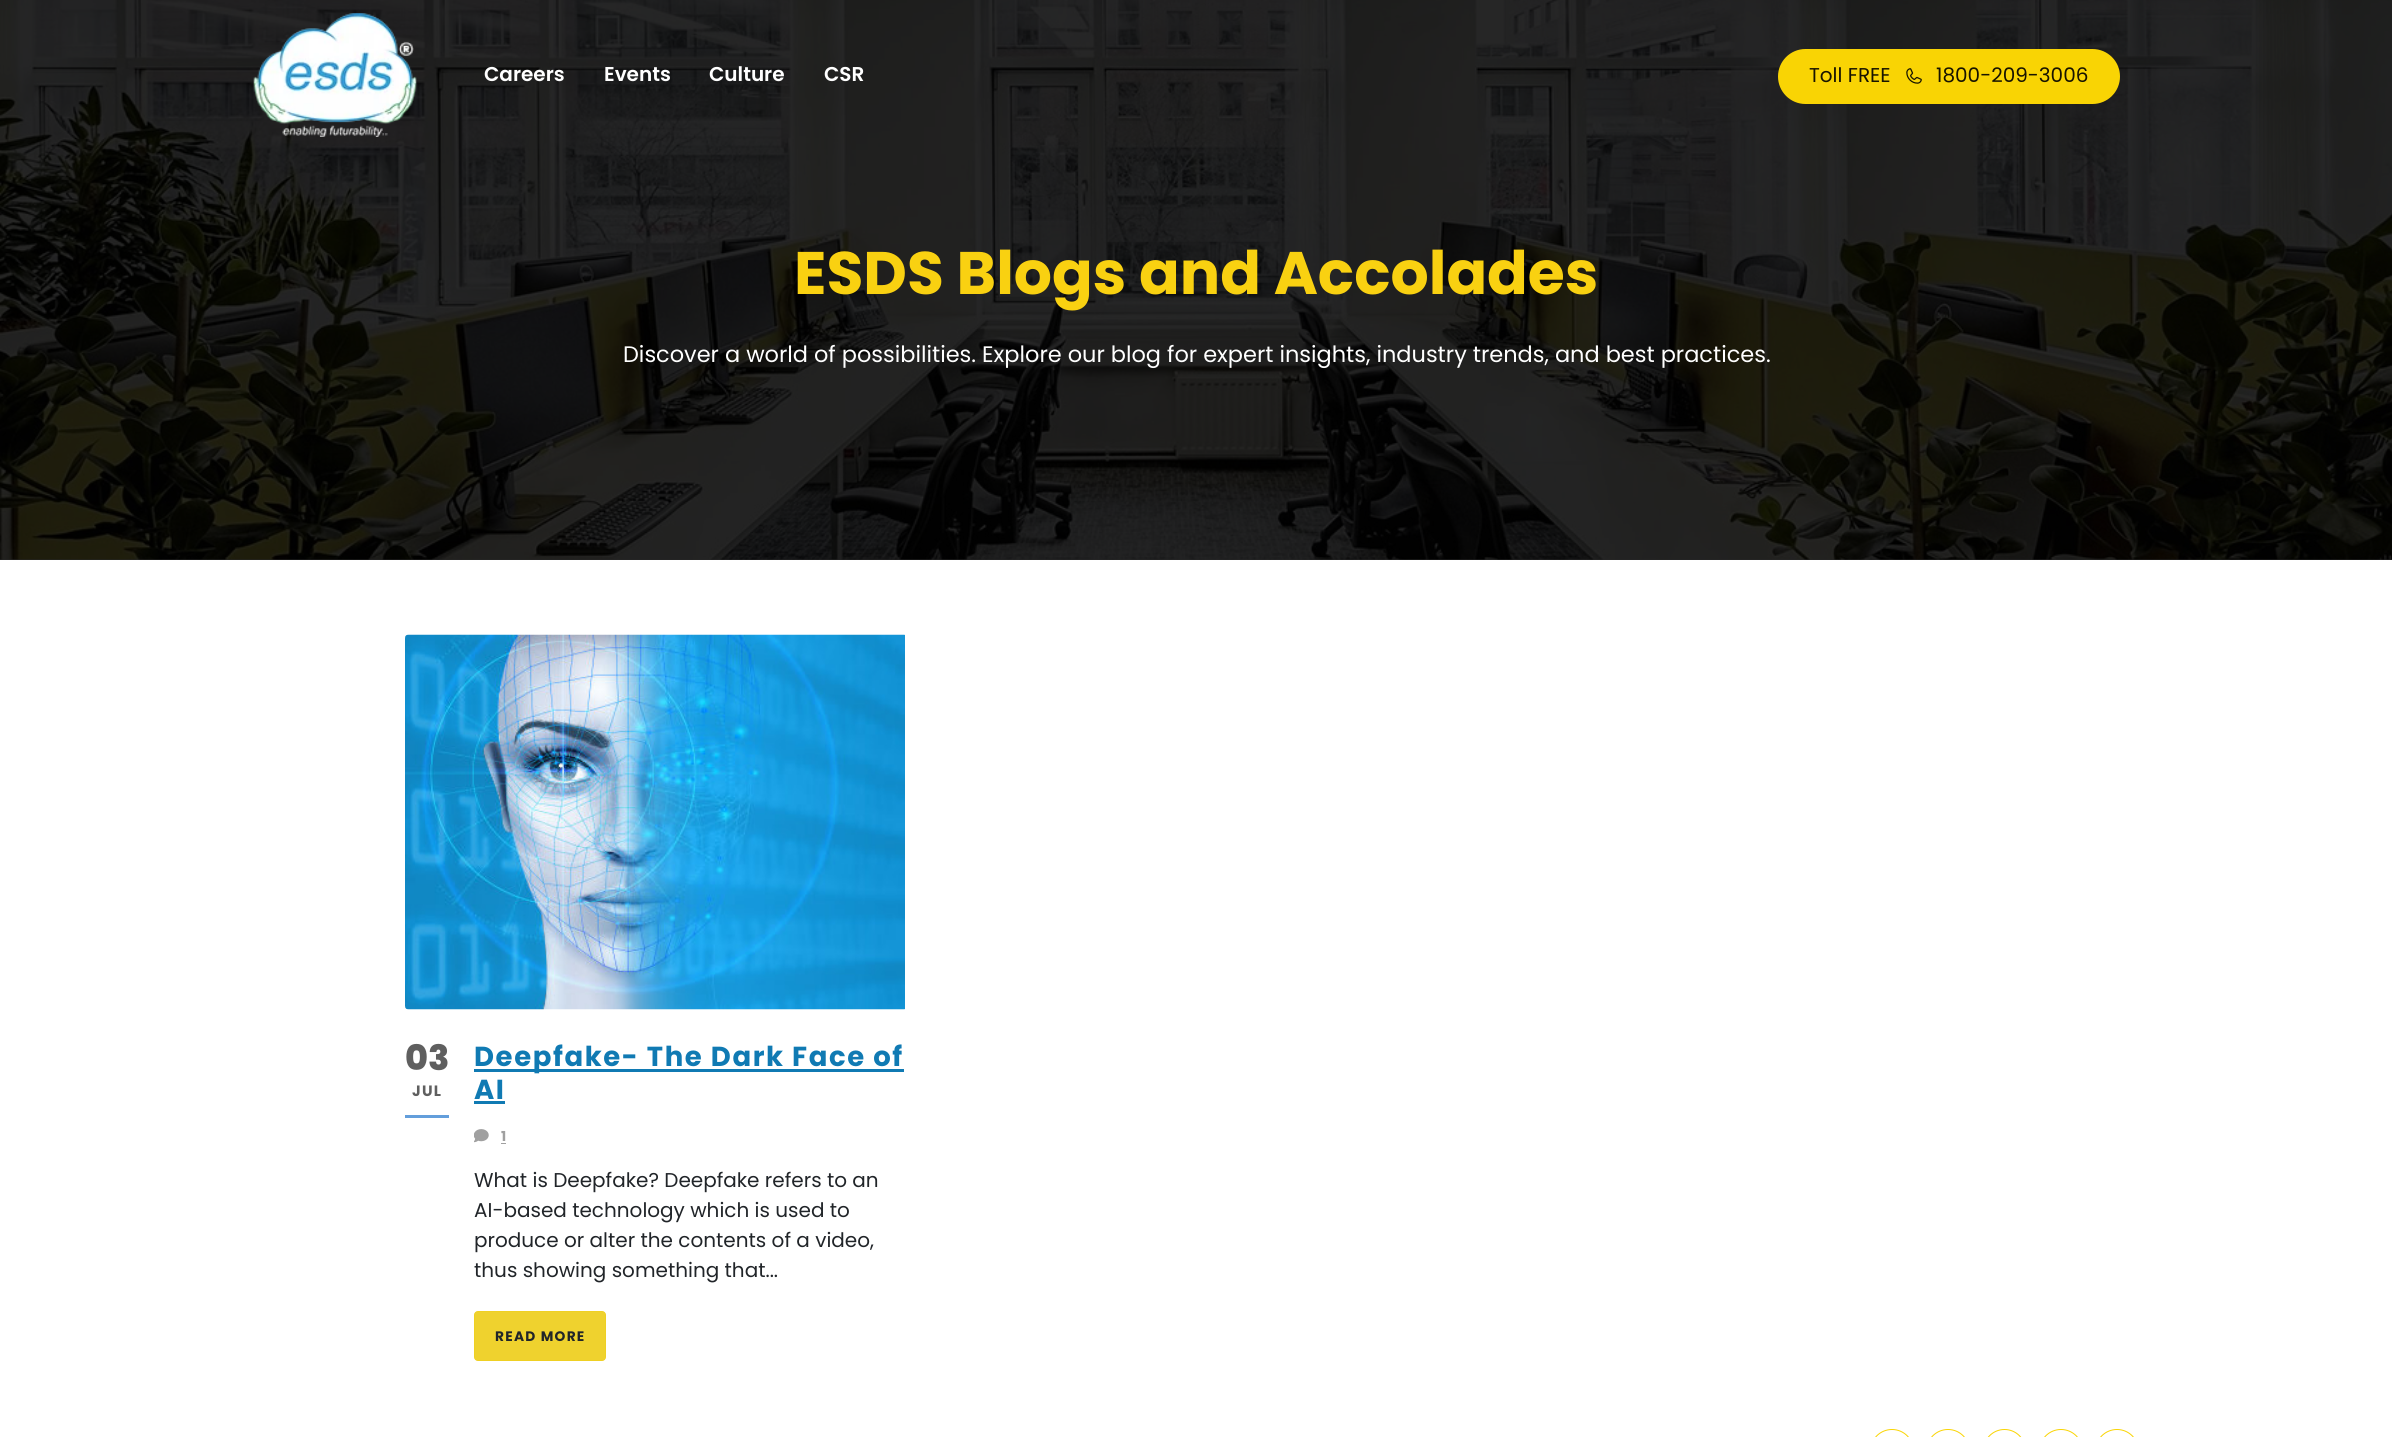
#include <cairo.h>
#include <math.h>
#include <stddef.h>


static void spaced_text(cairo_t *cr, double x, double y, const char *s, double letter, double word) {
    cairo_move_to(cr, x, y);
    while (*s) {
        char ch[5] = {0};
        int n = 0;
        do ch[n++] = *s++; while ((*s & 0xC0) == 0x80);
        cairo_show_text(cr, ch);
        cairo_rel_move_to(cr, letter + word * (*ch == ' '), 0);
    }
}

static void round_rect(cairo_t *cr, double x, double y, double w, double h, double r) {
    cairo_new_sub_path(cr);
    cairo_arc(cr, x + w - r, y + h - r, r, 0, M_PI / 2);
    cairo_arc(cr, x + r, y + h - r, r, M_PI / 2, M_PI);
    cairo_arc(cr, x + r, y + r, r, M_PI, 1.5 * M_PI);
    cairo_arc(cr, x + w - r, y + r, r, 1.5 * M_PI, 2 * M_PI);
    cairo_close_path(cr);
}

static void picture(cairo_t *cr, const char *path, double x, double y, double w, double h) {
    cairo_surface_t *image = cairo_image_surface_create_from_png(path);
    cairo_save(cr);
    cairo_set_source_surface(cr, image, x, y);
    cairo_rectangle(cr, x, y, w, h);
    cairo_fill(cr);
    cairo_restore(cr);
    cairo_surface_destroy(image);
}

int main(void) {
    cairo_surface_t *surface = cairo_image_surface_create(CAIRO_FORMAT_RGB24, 2392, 1437);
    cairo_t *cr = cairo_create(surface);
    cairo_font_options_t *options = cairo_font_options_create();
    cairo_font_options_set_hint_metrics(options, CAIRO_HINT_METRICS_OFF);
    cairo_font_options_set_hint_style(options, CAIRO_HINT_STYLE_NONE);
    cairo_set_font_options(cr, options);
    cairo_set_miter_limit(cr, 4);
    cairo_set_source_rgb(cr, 1, 1, 1);
    cairo_paint(cr);
    cairo_set_source_rgb(cr, 0.149, 0.149, 0.149);
    cairo_rectangle(cr, 0, 559, 2392, 1);
    cairo_fill(cr);
    picture(cr, "img3.png", 0, 0, 2392, 560);
    picture(cr, "img1.png", 253, 13, 164, 124);
    cairo_select_font_face(cr, "Poppins SemiBold", CAIRO_FONT_SLANT_NORMAL, CAIRO_FONT_WEIGHT_NORMAL);
    cairo_set_font_size(cr, 20);
    cairo_set_source_rgb(cr, 1, 1, 1);
    cairo_move_to(cr, 484, 81);
    cairo_show_text(cr, "Careers");
    cairo_move_to(cr, 604, 81);
    cairo_show_text(cr, "Events");
    cairo_move_to(cr, 709, 81);
    cairo_show_text(cr, "Culture");
    cairo_move_to(cr, 824, 81);
    cairo_show_text(cr, "CSR");
    cairo_set_source_rgb(cr, 0.973, 0.831, 0.016);
    round_rect(cr, 1778, 49, 342, 55, 27.5);
    cairo_fill(cr);
    cairo_select_font_face(cr, "Poppins", CAIRO_FONT_SLANT_NORMAL, CAIRO_FONT_WEIGHT_NORMAL);
    cairo_set_source_rgb(cr, 0.094, 0.082, 0);
    cairo_move_to(cr, 1809, 82);
    cairo_show_text(cr, "Toll FREE");
    picture(cr, "img2.png", 1906, 68, 16, 16);
    cairo_move_to(cr, 1936, 82);
    cairo_show_text(cr, "1800-209-3006");
    cairo_select_font_face(cr, "Poppins", CAIRO_FONT_SLANT_NORMAL, CAIRO_FONT_WEIGHT_BOLD);
    cairo_set_font_size(cr, 60);
    cairo_set_source_rgb(cr, 0.973, 0.82, 0.067);
    cairo_move_to(cr, 794, 294);
    cairo_show_text(cr, "ESDS Blogs and Accolades");
    cairo_select_font_face(cr, "Poppins", CAIRO_FONT_SLANT_NORMAL, CAIRO_FONT_WEIGHT_NORMAL);
    cairo_set_font_size(cr, 22.45);
    cairo_set_source_rgb(cr, 1, 1, 1);
    cairo_move_to(cr, 623, 362);
    cairo_show_text(cr, "Discover a world of possibilities. Explore our blog for expert insights, industry trends, and best practices.");
    picture(cr, "img4.png", 405, 634, 500, 376);
    cairo_set_source_rgb(cr, 0.388, 0.62, 0.859);
    cairo_rectangle(cr, 405, 1115, 44, 3);
    cairo_fill(cr);
    cairo_select_font_face(cr, "Poppins ExtraBold", CAIRO_FONT_SLANT_NORMAL, CAIRO_FONT_WEIGHT_NORMAL);
    cairo_set_font_size(cr, 35);
    cairo_set_source_rgb(cr, 0.373, 0.373, 0.373);
    cairo_move_to(cr, 405, 1070);
    cairo_show_text(cr, "03");
    cairo_select_font_face(cr, "Poppins", CAIRO_FONT_SLANT_NORMAL, CAIRO_FONT_WEIGHT_BOLD);
    cairo_set_font_size(cr, 15);
    spaced_text(cr, 412, 1096, "JUL", 1.25, 0);
    cairo_set_source_rgb(cr, 0.063, 0.478, 0.702);
    cairo_rectangle(cr, 474, 1069, 430, 3);
    cairo_fill(cr);
    cairo_set_font_size(cr, 27.5);
    spaced_text(cr, 474, 1066, "Deepfake- The Dark Face of", 1.6, 0);
    spaced_text(cr, 474, 1099, "AI", 1.6, 0);
    cairo_rectangle(cr, 474, 1101, 31, 3);
    cairo_fill(cr);
    picture(cr, "img5.png", 474, 1129, 15, 14);
    cairo_set_font_size(cr, 13.75);
    cairo_set_source_rgb(cr, 0.627, 0.627, 0.627);
    cairo_move_to(cr, 501, 1141);
    cairo_show_text(cr, "1");
    cairo_rectangle(cr, 501, 1143, 5, 1);
    cairo_fill(cr);
    cairo_select_font_face(cr, "Poppins", CAIRO_FONT_SLANT_NORMAL, CAIRO_FONT_WEIGHT_NORMAL);
    cairo_set_font_size(cr, 20);
    cairo_set_source_rgb(cr, 0.129, 0.145, 0.161);
    cairo_move_to(cr, 474, 1187);
    cairo_show_text(cr, "What is Deepfake? Deepfake refers to an");
    cairo_move_to(cr, 474, 1217);
    cairo_show_text(cr, "AI-based technology which is used to");
    cairo_move_to(cr, 474, 1247);
    cairo_show_text(cr, "produce or alter the contents of a video,");
    cairo_move_to(cr, 474, 1277);
    cairo_show_text(cr, "thus showing something that...");
    cairo_set_source_rgb(cr, 0.937, 0.824, 0.18);
    round_rect(cr, 474.5, 1311.5, 131, 49, 3.5);
    cairo_fill_preserve(cr);
    cairo_set_source_rgb(cr, 0.937, 0.816, 0.137);
    cairo_set_line_width(cr, 1);
    cairo_stroke(cr);
    cairo_select_font_face(cr, "Poppins", CAIRO_FONT_SLANT_NORMAL, CAIRO_FONT_WEIGHT_BOLD);
    cairo_set_font_size(cr, 13.75);
    cairo_set_source_rgb(cr, 0.129, 0.145, 0.161);
    spaced_text(cr, 495, 1341, "READ MORE", 1.25, 0);
    round_rect(cr, 1870.5, 1429.5, 43, 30, 21.5);
    cairo_set_source_rgb(cr, 0.973, 0.831, 0.016);
    cairo_stroke(cr);
    round_rect(cr, 1926.5, 1429.5, 43, 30, 21.5);
    cairo_stroke(cr);
    round_rect(cr, 1983.5, 1429.5, 42, 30, 21);
    cairo_stroke(cr);
    round_rect(cr, 2039.5, 1429.5, 43, 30, 21.5);
    cairo_stroke(cr);
    round_rect(cr, 2095.5, 1429.5, 43, 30, 21.5);
    cairo_stroke(cr);
    cairo_surface_write_to_png(surface, "page.png");
    cairo_font_options_destroy(options);
    cairo_destroy(cr);
    cairo_surface_destroy(surface);
    return 0;
}
